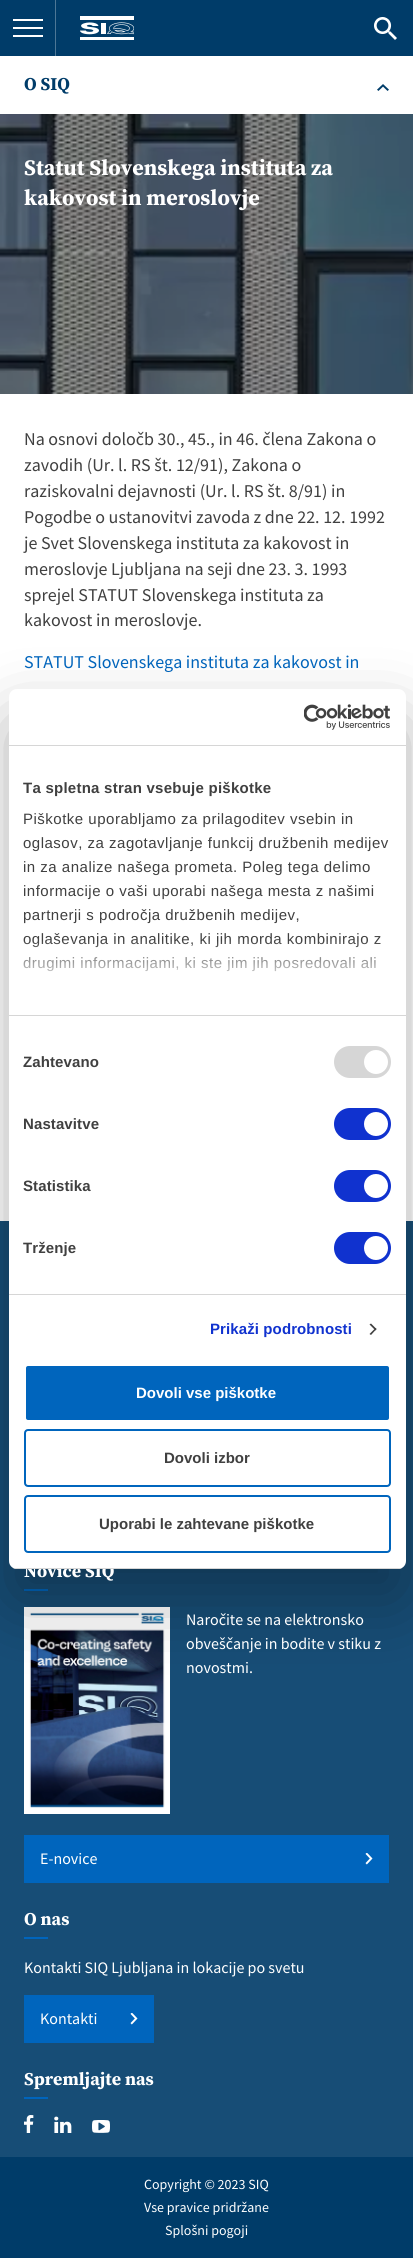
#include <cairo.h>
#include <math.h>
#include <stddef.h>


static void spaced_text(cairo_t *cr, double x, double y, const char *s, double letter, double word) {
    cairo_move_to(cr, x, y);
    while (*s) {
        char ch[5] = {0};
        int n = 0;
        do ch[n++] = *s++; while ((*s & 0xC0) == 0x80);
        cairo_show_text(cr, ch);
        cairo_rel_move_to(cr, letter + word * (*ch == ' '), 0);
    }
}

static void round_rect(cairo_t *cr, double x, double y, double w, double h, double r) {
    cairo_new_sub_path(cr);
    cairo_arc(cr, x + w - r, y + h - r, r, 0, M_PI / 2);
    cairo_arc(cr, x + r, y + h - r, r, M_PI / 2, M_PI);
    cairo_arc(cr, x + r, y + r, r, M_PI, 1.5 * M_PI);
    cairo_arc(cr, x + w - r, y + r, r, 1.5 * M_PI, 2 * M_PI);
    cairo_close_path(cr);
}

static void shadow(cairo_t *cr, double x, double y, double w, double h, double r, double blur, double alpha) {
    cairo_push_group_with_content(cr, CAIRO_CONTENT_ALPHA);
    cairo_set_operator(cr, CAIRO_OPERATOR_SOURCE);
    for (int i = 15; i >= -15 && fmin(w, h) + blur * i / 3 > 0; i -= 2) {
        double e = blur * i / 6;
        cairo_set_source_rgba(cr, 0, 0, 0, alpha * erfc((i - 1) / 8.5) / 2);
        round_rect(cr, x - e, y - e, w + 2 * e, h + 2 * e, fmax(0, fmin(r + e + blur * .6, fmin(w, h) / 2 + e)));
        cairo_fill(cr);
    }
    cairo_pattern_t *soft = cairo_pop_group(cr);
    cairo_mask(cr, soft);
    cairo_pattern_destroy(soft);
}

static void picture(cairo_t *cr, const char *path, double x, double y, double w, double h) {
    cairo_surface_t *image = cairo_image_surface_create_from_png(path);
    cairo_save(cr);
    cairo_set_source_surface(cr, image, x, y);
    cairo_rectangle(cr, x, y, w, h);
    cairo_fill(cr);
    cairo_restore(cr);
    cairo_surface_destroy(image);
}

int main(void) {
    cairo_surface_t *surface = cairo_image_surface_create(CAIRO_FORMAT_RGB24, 413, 2258);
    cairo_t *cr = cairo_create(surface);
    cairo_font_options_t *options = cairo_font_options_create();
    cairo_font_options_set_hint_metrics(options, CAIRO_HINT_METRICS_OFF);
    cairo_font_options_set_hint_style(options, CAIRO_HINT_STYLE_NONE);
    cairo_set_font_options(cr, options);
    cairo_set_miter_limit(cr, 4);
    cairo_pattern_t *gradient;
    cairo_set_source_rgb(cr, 1, 1, 1);
    cairo_paint(cr);
    cairo_set_source_rgb(cr, 0, 0.235, 0.412);
    cairo_rectangle(cr, 0, 0, 413, 56);
    cairo_fill(cr);
    cairo_set_source_rgb(cr, 0.302, 0.467, 0.588);
    cairo_rectangle(cr, 55, 0, 1, 56);
    cairo_fill(cr);
    cairo_set_source_rgb(cr, 1, 1, 1);
    cairo_rectangle(cr, 13, 19, 30, 2);
    cairo_fill(cr);
    cairo_rectangle(cr, 13, 27, 30, 2);
    cairo_fill(cr);
    cairo_rectangle(cr, 13, 35, 30, 2);
    cairo_fill(cr);
    picture(cr, "img1.png", 80, 16, 54, 24);
    picture(cr, "img2.png", 374, 17, 23, 23);
    cairo_select_font_face(cr, "Source Serif Pro", CAIRO_FONT_SLANT_NORMAL, CAIRO_FONT_WEIGHT_BOLD);
    cairo_set_font_size(cr, 18);
    cairo_set_source_rgb(cr, 0, 0.235, 0.412);
    cairo_move_to(cr, 24, 90);
    cairo_show_text(cr, "O SIQ");
    picture(cr, "img3.png", 377, 84, 12, 7);
    picture(cr, "img4.png", 0, 114, 413, 280);
    cairo_set_font_size(cr, 22);
    cairo_set_source_rgb(cr, 1, 1, 1);
    cairo_move_to(cr, 24, 175);
    cairo_show_text(cr, "Statut Slovenskega instituta za");
    cairo_move_to(cr, 24, 205);
    cairo_show_text(cr, "kakovost in meroslovje");
    cairo_select_font_face(cr, "Source Sans Pro", CAIRO_FONT_SLANT_NORMAL, CAIRO_FONT_WEIGHT_NORMAL);
    cairo_set_font_size(cr, 18);
    cairo_set_source_rgb(cr, 0.251, 0.251, 0.251);
    cairo_move_to(cr, 24, 445);
    cairo_show_text(cr, "Na osnovi določb 30., 45., in 46. člena Zakona o");
    cairo_move_to(cr, 24, 471);
    cairo_show_text(cr, "zavodih (Ur. l. RS št. 12/91), Zakona o");
    cairo_move_to(cr, 24, 497);
    cairo_show_text(cr, "raziskovalni dejavnosti (Ur. l. RS št. 8/91) in");
    cairo_move_to(cr, 24, 523);
    cairo_show_text(cr, "Pogodbe o ustanovitvi zavoda z dne 22. 12. 1992");
    cairo_move_to(cr, 24, 549);
    cairo_show_text(cr, "je Svet Slovenskega instituta za kakovost in");
    cairo_move_to(cr, 24, 575);
    cairo_show_text(cr, "meroslovje Ljubljana na seji dne 23. 3. 1993");
    cairo_move_to(cr, 24, 601);
    cairo_show_text(cr, "sprejel STATUT Slovenskega instituta za");
    cairo_move_to(cr, 24, 626);
    cairo_show_text(cr, "kakovost in meroslovje.");
    cairo_set_source_rgb(cr, 0, 0.396, 0.741);
    cairo_move_to(cr, 24, 668);
    cairo_show_text(cr, "STATUT Slovenskega instituta za kakovost in");
    cairo_set_source_rgb(cr, 0.09, 0.302, 0.463);
    cairo_rectangle(cr, 0, 1221, 413, 936);
    cairo_fill(cr);
    cairo_set_source_rgb(cr, 0, 0.396, 0.741);
    cairo_rectangle(cr, 24, 1589, 24, 2);
    cairo_fill(cr);
    picture(cr, "img6.png", 24, 1607, 146, 207);
    cairo_set_source_rgb(cr, 0, 0, 0);
    shadow(cr, 9, 721, 397, 880, 8, 34, 0.3);
    cairo_set_source_rgb(cr, 1, 1, 1);
    round_rect(cr, 9, 689, 397, 880, 8);
    cairo_fill(cr);
    cairo_set_source_rgb(cr, 0.839, 0.839, 0.839);
    cairo_rectangle(cr, 9, 745, 397, 1);
    cairo_fill(cr);
    picture(cr, "img5.png", 304, 704, 86, 26);
    cairo_rectangle(cr, 9, 1015, 397, 1);
    cairo_fill(cr);
    cairo_select_font_face(cr, "Liberation Sans", CAIRO_FONT_SLANT_NORMAL, CAIRO_FONT_WEIGHT_BOLD);
    cairo_set_font_size(cr, 15);
    cairo_set_source_rgb(cr, 0.251, 0.251, 0.251);
    spaced_text(cr, 23, 793, "Ta spletna stran vsebuje piškotke", 0.25, 0);
    cairo_select_font_face(cr, "Liberation Sans", CAIRO_FONT_SLANT_NORMAL, CAIRO_FONT_WEIGHT_NORMAL);
    spaced_text(cr, 23, 824, "Piškotke uporabljamo za prilagoditev vsebin in", 0.5, 0);
    spaced_text(cr, 23, 848, "oglasov, za zagotavljanje funkcij družbenih medijev", 0.5, 0);
    spaced_text(cr, 23, 872, "in za analize našega prometa. Poleg tega delimo", 0.5, 0);
    spaced_text(cr, 23, 896, "informacije o vaši uporabi našega mesta z našimi", 0.5, 0);
    spaced_text(cr, 23, 920, "partnerji s področja družbenih medijev,", 0.5, 0);
    spaced_text(cr, 23, 944, "oglaševanja in analitike, ki jih morda kombinirajo z", 0.5, 0);
    spaced_text(cr, 23, 968, "drugimi informacijami, ki ste jim jih posredovali ali", 0.5, 0);
    gradient = cairo_pattern_create_linear(201, 1015, 201, 940);
    cairo_pattern_add_color_stop_rgba(gradient, 0, 1, 1, 1, 1);
    cairo_pattern_add_color_stop_rgba(gradient, 0.5, 1, 1, 1, 0.8);
    cairo_pattern_add_color_stop_rgba(gradient, 1, 1, 1, 1, 0);
    cairo_set_source(cr, gradient);
    cairo_pattern_destroy(gradient);
    cairo_rectangle(cr, 23, 941, 358, 31);
    cairo_fill(cr);
    cairo_set_source_rgb(cr, 0.839, 0.839, 0.839);
    cairo_rectangle(cr, 9, 1294, 397, 1);
    cairo_fill(cr);
    cairo_select_font_face(cr, "Liberation Sans", CAIRO_FONT_SLANT_NORMAL, CAIRO_FONT_WEIGHT_BOLD);
    cairo_set_source_rgb(cr, 0.251, 0.251, 0.251);
    spaced_text(cr, 23, 1067, "Zahtevano", 0.1, 0);
    cairo_set_source_rgb(cr, 0.839, 0.839, 0.839);
    round_rect(cr, 334, 1046, 57, 32, 16);
    cairo_fill(cr);
    cairo_set_source_rgb(cr, 1, 1, 1);
    cairo_arc(cr, 376, 1062, 12, 0, 2 * M_PI);
    cairo_fill(cr);
    cairo_set_source_rgb(cr, 0.251, 0.251, 0.251);
    spaced_text(cr, 23, 1129, "Nastavitve", 0.1, 0);
    cairo_set_source_rgb(cr, 0.063, 0.196, 0.812);
    round_rect(cr, 334, 1108, 57, 32, 16);
    cairo_fill(cr);
    cairo_set_source_rgb(cr, 1, 1, 1);
    cairo_arc(cr, 376, 1124, 12, 0, 2 * M_PI);
    cairo_fill(cr);
    cairo_set_source_rgb(cr, 0.251, 0.251, 0.251);
    spaced_text(cr, 23, 1191, "Statistika", 0.1, 0);
    cairo_set_source_rgb(cr, 0.063, 0.196, 0.812);
    round_rect(cr, 334, 1170, 57, 32, 16);
    cairo_fill(cr);
    cairo_set_source_rgb(cr, 1, 1, 1);
    cairo_arc(cr, 376, 1186, 12, 0, 2 * M_PI);
    cairo_fill(cr);
    cairo_set_source_rgb(cr, 0.251, 0.251, 0.251);
    spaced_text(cr, 23, 1253, "Trženje", 0.1, 0);
    cairo_set_source_rgb(cr, 0.063, 0.196, 0.812);
    round_rect(cr, 334, 1232, 57, 32, 16);
    cairo_fill(cr);
    cairo_set_source_rgb(cr, 1, 1, 1);
    cairo_arc(cr, 376, 1248, 12, 0, 2 * M_PI);
    cairo_fill(cr);
    cairo_set_source_rgb(cr, 0.063, 0.196, 0.812);
    spaced_text(cr, 210, 1334, "Prikaži podrobnosti", 0.1, 0);
    cairo_set_source_rgb(cr, 0.251, 0.251, 0.251);
    cairo_new_path(cr);
    cairo_move_to(cr, 371, 1323.5);
    cairo_line_to(cr, 376.5, 1329);
    cairo_line_to(cr, 375.5, 1330.5);
    cairo_line_to(cr, 369.5, 1324.5);
    cairo_close_path(cr);
    cairo_fill(cr);
    cairo_new_path(cr);
    cairo_move_to(cr, 375.5, 1328);
    cairo_line_to(cr, 376.5, 1329);
    cairo_line_to(cr, 371, 1335);
    cairo_line_to(cr, 369.5, 1334);
    cairo_close_path(cr);
    cairo_fill(cr);
    cairo_select_font_face(cr, "Source Serif Pro", CAIRO_FONT_SLANT_NORMAL, CAIRO_FONT_WEIGHT_BOLD);
    cairo_set_font_size(cr, 18);
    cairo_set_source_rgb(cr, 1, 1, 1);
    cairo_move_to(cr, 24, 1577);
    cairo_show_text(cr, "Novice SIQ");
    cairo_save(cr);
    round_rect(cr, 9, 689, 397, 880, 8);
    cairo_clip(cr);
    cairo_set_source_rgb(cr, 0.839, 0.839, 0.839);
    cairo_rectangle(cr, 9, 1568, 397, 1);
    cairo_fill(cr);
    cairo_restore(cr);
    cairo_set_source_rgb(cr, 0, 0.396, 0.741);
    round_rect(cr, 25, 1365, 365, 56, 3);
    cairo_fill_preserve(cr);
    cairo_set_source_rgb(cr, 1, 1, 1);
    cairo_stroke(cr);
    cairo_select_font_face(cr, "Liberation Sans", CAIRO_FONT_SLANT_NORMAL, CAIRO_FONT_WEIGHT_BOLD);
    cairo_set_font_size(cr, 15);
    cairo_move_to(cr, 136, 1398);
    cairo_show_text(cr, "Dovoli vse piškotke");
    round_rect(cr, 25, 1430, 365, 56, 3);
    cairo_set_source_rgb(cr, 0, 0.396, 0.741);
    cairo_stroke(cr);
    cairo_set_source_rgb(cr, 0.251, 0.251, 0.251);
    cairo_move_to(cr, 164, 1463);
    cairo_show_text(cr, "Dovoli izbor");
    round_rect(cr, 25, 1496, 365, 56, 3);
    cairo_set_source_rgb(cr, 0, 0.396, 0.741);
    cairo_stroke(cr);
    cairo_set_source_rgb(cr, 0.251, 0.251, 0.251);
    cairo_move_to(cr, 99, 1529);
    cairo_show_text(cr, "Uporabi le zahtevane piškotke");
    cairo_select_font_face(cr, "Source Sans Pro", CAIRO_FONT_SLANT_NORMAL, CAIRO_FONT_WEIGHT_NORMAL);
    cairo_set_font_size(cr, 16);
    cairo_set_source_rgb(cr, 1, 1, 1);
    cairo_move_to(cr, 186, 1625);
    cairo_show_text(cr, "Naročite se na elektronsko");
    cairo_move_to(cr, 186, 1649);
    cairo_show_text(cr, "obveščanje in bodite v stiku z");
    cairo_move_to(cr, 186, 1673);
    cairo_show_text(cr, "novostmi.");
    cairo_set_source_rgb(cr, 0, 0.396, 0.741);
    cairo_rectangle(cr, 24, 1835, 365, 48);
    cairo_fill(cr);
    cairo_set_source_rgb(cr, 1, 1, 1);
    cairo_move_to(cr, 40, 1864);
    cairo_show_text(cr, "E-novice");
    picture(cr, "img7.png", 365, 1853, 8, 12);
    cairo_select_font_face(cr, "Source Serif Pro", CAIRO_FONT_SLANT_NORMAL, CAIRO_FONT_WEIGHT_BOLD);
    cairo_set_font_size(cr, 18);
    cairo_move_to(cr, 24, 1925);
    cairo_show_text(cr, "O nas");
    cairo_set_source_rgb(cr, 0, 0.396, 0.741);
    cairo_rectangle(cr, 24, 1937, 24, 2);
    cairo_fill(cr);
    cairo_select_font_face(cr, "Source Sans Pro", CAIRO_FONT_SLANT_NORMAL, CAIRO_FONT_WEIGHT_NORMAL);
    cairo_set_font_size(cr, 16);
    cairo_set_source_rgb(cr, 1, 1, 1);
    cairo_move_to(cr, 24, 1973);
    cairo_show_text(cr, "Kontakti SIQ Ljubljana in lokacije po svetu");
    cairo_set_source_rgb(cr, 0, 0.396, 0.741);
    cairo_rectangle(cr, 24, 1995, 130, 48);
    cairo_fill(cr);
    cairo_set_source_rgb(cr, 1, 1, 1);
    cairo_move_to(cr, 40, 2024);
    cairo_show_text(cr, "Kontakti");
    picture(cr, "img7.png", 130, 2013, 8, 12);
    cairo_select_font_face(cr, "Source Serif Pro", CAIRO_FONT_SLANT_NORMAL, CAIRO_FONT_WEIGHT_BOLD);
    cairo_set_font_size(cr, 18);
    cairo_move_to(cr, 24, 2085);
    cairo_show_text(cr, "Spremljajte nas");
    cairo_set_source_rgb(cr, 0, 0.396, 0.741);
    cairo_rectangle(cr, 24, 2097, 24, 2);
    cairo_fill(cr);
    picture(cr, "img8.png", 24, 2115, 10, 18);
    picture(cr, "img9.png", 54, 2116, 18, 17);
    picture(cr, "img10.png", 92, 2120, 18, 13);
    cairo_set_source_rgb(cr, 0, 0.235, 0.412);
    cairo_rectangle(cr, 0, 2157, 413, 101);
    cairo_fill(cr);
    cairo_select_font_face(cr, "Source Sans Pro", CAIRO_FONT_SLANT_NORMAL, CAIRO_FONT_WEIGHT_NORMAL);
    cairo_set_font_size(cr, 14);
    cairo_set_source_rgb(cr, 1, 1, 1);
    cairo_move_to(cr, 144, 2189);
    cairo_show_text(cr, "Copyright © 2023 SIQ");
    cairo_move_to(cr, 144, 2212);
    cairo_show_text(cr, "Vse pravice pridržane");
    cairo_move_to(cr, 165, 2235);
    cairo_show_text(cr, "Splošni pogoji");
    cairo_surface_write_to_png(surface, "page.png");
    cairo_font_options_destroy(options);
    cairo_destroy(cr);
    cairo_surface_destroy(surface);
    return 0;
}
